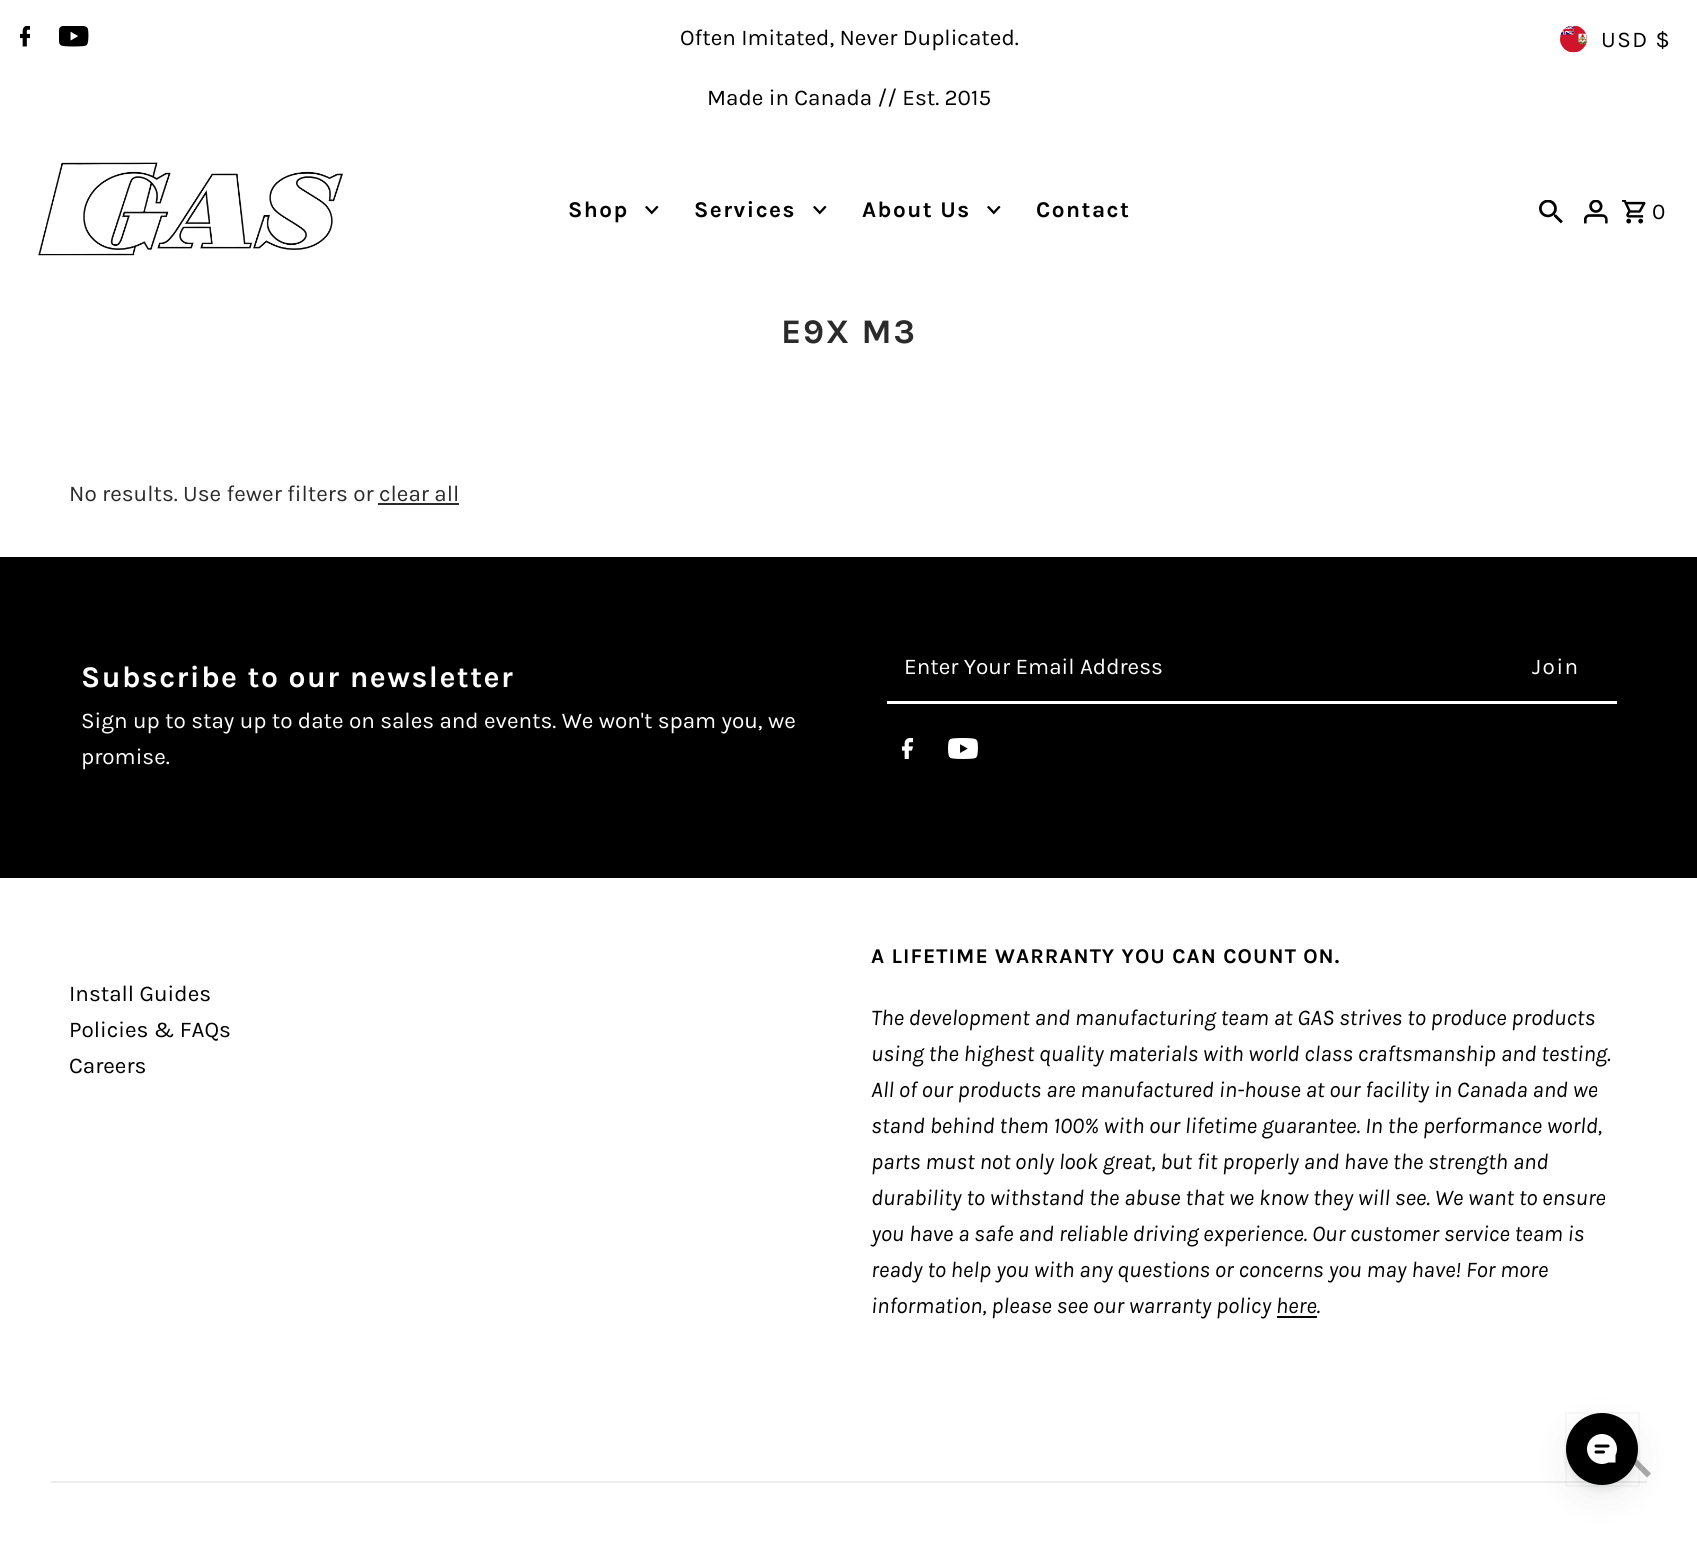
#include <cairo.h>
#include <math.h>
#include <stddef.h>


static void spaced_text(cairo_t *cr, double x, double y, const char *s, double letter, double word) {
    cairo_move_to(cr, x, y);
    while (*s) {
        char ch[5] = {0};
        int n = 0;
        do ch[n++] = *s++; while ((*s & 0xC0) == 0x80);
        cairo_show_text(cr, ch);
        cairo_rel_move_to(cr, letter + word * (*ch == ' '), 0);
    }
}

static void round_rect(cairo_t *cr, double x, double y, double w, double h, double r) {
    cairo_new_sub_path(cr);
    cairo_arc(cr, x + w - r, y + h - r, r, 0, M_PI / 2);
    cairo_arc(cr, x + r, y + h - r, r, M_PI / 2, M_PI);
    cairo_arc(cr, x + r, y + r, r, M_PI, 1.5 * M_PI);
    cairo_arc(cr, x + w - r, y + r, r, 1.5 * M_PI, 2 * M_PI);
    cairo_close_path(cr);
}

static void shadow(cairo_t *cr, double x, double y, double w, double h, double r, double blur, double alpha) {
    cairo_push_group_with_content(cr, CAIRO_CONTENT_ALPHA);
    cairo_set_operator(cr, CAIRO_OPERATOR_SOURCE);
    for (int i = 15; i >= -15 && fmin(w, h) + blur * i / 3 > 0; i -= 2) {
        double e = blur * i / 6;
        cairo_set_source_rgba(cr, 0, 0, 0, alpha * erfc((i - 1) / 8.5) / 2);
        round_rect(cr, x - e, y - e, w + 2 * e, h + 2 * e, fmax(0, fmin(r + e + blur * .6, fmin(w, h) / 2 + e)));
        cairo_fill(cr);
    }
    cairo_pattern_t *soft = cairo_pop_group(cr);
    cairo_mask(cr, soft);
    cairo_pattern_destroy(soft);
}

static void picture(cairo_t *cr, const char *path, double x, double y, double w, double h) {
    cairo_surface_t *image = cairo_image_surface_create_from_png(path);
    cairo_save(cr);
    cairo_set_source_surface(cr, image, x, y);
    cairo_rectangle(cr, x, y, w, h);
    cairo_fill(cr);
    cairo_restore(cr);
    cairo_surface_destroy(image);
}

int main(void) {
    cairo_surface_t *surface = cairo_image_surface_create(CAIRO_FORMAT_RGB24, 1697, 1544);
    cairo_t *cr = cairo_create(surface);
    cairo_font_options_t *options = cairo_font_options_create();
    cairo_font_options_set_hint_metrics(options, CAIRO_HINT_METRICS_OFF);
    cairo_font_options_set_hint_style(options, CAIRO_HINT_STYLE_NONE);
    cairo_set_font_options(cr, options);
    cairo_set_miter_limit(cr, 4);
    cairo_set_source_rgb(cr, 1, 1, 1);
    cairo_paint(cr);
    picture(cr, "img1.png", 20, 26, 10, 21);
    picture(cr, "img2.png", 59, 26, 30, 21);
    cairo_select_font_face(cr, "Karla", CAIRO_FONT_SLANT_NORMAL, CAIRO_FONT_WEIGHT_NORMAL);
    cairo_set_font_size(cr, 22.5);
    cairo_set_source_rgb(cr, 0, 0, 0);
    cairo_move_to(cr, 680, 45);
    cairo_show_text(cr, "Often Imitated, Never Duplicated.");
    cairo_move_to(cr, 707, 105);
    cairo_show_text(cr, "Made in Canada // Est. 2015");
    picture(cr, "img3.png", 1560, 26, 27, 27);
    spaced_text(cr, 1601, 47, "USD $", 1.5, 0);
    picture(cr, "img4.png", 38, 162, 305, 94);
    cairo_select_font_face(cr, "Karla", CAIRO_FONT_SLANT_NORMAL, CAIRO_FONT_WEIGHT_BOLD);
    spaced_text(cr, 568, 217, "Shop", 1.5, 0);
    picture(cr, "img5.png", 645, 206, 14, 9);
    spaced_text(cr, 694, 217, "Services", 1.5, 0);
    picture(cr, "img5.png", 813, 206, 14, 9);
    spaced_text(cr, 862, 217, "About Us", 1.5, 0);
    picture(cr, "img5.png", 987, 206, 14, 9);
    spaced_text(cr, 1036, 217, "Contact", 1.5, 0);
    picture(cr, "img6.png", 1539, 200, 24, 24);
    picture(cr, "img7.png", 1584, 200, 24, 24);
    picture(cr, "img8.png", 1622, 200, 24, 24);
    cairo_select_font_face(cr, "Karla", CAIRO_FONT_SLANT_NORMAL, CAIRO_FONT_WEIGHT_NORMAL);
    spaced_text(cr, 1652, 219, "0", 1.5, 0);
    cairo_select_font_face(cr, "Karla", CAIRO_FONT_SLANT_NORMAL, CAIRO_FONT_WEIGHT_BOLD);
    cairo_set_font_size(cr, 34.5);
    cairo_set_source_rgb(cr, 0.169, 0.169, 0.169);
    spaced_text(cr, 781, 343, "E9X M3", 1.75, 0);
    cairo_select_font_face(cr, "Karla", CAIRO_FONT_SLANT_NORMAL, CAIRO_FONT_WEIGHT_NORMAL);
    cairo_set_font_size(cr, 22.5);
    cairo_move_to(cr, 69, 501);
    cairo_show_text(cr, "No results. Use fewer filters or clear all");
    cairo_rectangle(cr, 378, 503, 81, 2);
    cairo_fill(cr);
    cairo_set_source_rgb(cr, 0, 0, 0);
    cairo_rectangle(cr, 0, 557, 1697, 321);
    cairo_fill(cr);
    cairo_select_font_face(cr, "Karla", CAIRO_FONT_SLANT_NORMAL, CAIRO_FONT_WEIGHT_BOLD);
    cairo_set_font_size(cr, 30);
    cairo_set_source_rgb(cr, 1, 1, 1);
    spaced_text(cr, 81, 687, "Subscribe to our newsletter", 1.5, 0);
    cairo_select_font_face(cr, "Karla", CAIRO_FONT_SLANT_NORMAL, CAIRO_FONT_WEIGHT_NORMAL);
    cairo_set_font_size(cr, 22.5);
    cairo_move_to(cr, 81, 728);
    cairo_show_text(cr, "Sign up to stay up to date on sales and events. We won't spam you, we");
    cairo_move_to(cr, 81, 764);
    cairo_show_text(cr, "promise.");
    cairo_rectangle(cr, 887, 701, 730, 3);
    cairo_fill(cr);
    cairo_move_to(cr, 904, 674);
    cairo_show_text(cr, "Enter Your Email Address");
    spaced_text(cr, 1532, 674, "Join", 1.5, 0);
    picture(cr, "img9.png", 902, 738, 12, 21);
    picture(cr, "img10.png", 948, 738, 30, 21);
    cairo_set_source_rgb(cr, 0, 0, 0);
    cairo_move_to(cr, 69, 1001);
    cairo_show_text(cr, "Install Guides");
    cairo_move_to(cr, 69, 1037);
    cairo_show_text(cr, "Policies & FAQs");
    cairo_move_to(cr, 69, 1073);
    cairo_show_text(cr, "Careers");
    cairo_select_font_face(cr, "Karla", CAIRO_FONT_SLANT_NORMAL, CAIRO_FONT_WEIGHT_BOLD);
    cairo_set_font_size(cr, 21);
    spaced_text(cr, 871, 963, "A LIFETIME WARRANTY YOU CAN COUNT ON.", 1.05, 0);
    cairo_select_font_face(cr, "Karla", CAIRO_FONT_SLANT_ITALIC, CAIRO_FONT_WEIGHT_NORMAL);
    cairo_set_font_size(cr, 22.5);
    cairo_move_to(cr, 871, 1025);
    cairo_show_text(cr, "The development and manufacturing team at GAS strives to produce products");
    cairo_move_to(cr, 871, 1061);
    cairo_show_text(cr, "using the highest quality materials with world class craftsmanship and testing.");
    cairo_move_to(cr, 871, 1097);
    cairo_show_text(cr, "All of our products are manufactured in-house at our facility in Canada and we");
    cairo_move_to(cr, 871, 1133);
    cairo_show_text(cr, "stand behind them 100% with our lifetime guarantee. In the performance world,");
    cairo_move_to(cr, 871, 1169);
    cairo_show_text(cr, "parts must not only look great, but fit properly and have the strength and");
    cairo_move_to(cr, 871, 1205);
    cairo_show_text(cr, "durability to withstand the abuse that we know they will see. We want to ensure");
    cairo_move_to(cr, 871, 1241);
    cairo_show_text(cr, "you have a safe and reliable driving experience. Our customer service team is");
    cairo_move_to(cr, 871, 1277);
    cairo_show_text(cr, "ready to help you with any questions or concerns you may have! For more");
    cairo_move_to(cr, 871, 1313);
    cairo_show_text(cr, "information, please see our warranty policy here.");
    cairo_rectangle(cr, 1277, 1316, 40, 2);
    cairo_fill(cr);
    cairo_set_source_rgb(cr, 0.929, 0.929, 0.929);
    cairo_rectangle(cr, 51, 1481, 1596, 2);
    cairo_fill(cr);
    cairo_set_source_rgb(cr, 0.667, 0.667, 0.667);
    cairo_new_path(cr);
    cairo_move_to(cr, 1634, 1456.5);
    cairo_line_to(cr, 1617, 1473.5);
    cairo_line_to(cr, 1621, 1477.5);
    cairo_line_to(cr, 1634, 1464.5);
    cairo_line_to(cr, 1647, 1477.5);
    cairo_line_to(cr, 1651, 1473.5);
    cairo_close_path(cr);
    cairo_fill(cr);
    cairo_set_source_rgb(cr, 0.216, 0.247, 0.278);
    shadow(cr, 1566, 1425, 72, 72, 36, 18, 0.08);
    shadow(cr, 1566, 1419, 72, 72, 36, 3, 0.08);
    cairo_rectangle(cr, 1566, 1413, 73, 73);
    cairo_set_source_rgba(cr, 0.216, 0.247, 0.278, 0.04);
    cairo_stroke(cr);
    cairo_set_source_rgb(cr, 0, 0, 0);
    cairo_arc(cr, 1602, 1449, 36, 0, 2 * M_PI);
    cairo_fill(cr);
    picture(cr, "img11.png", 1587, 1434, 30, 30);
    cairo_surface_write_to_png(surface, "page.png");
    cairo_font_options_destroy(options);
    cairo_destroy(cr);
    cairo_surface_destroy(surface);
    return 0;
}
